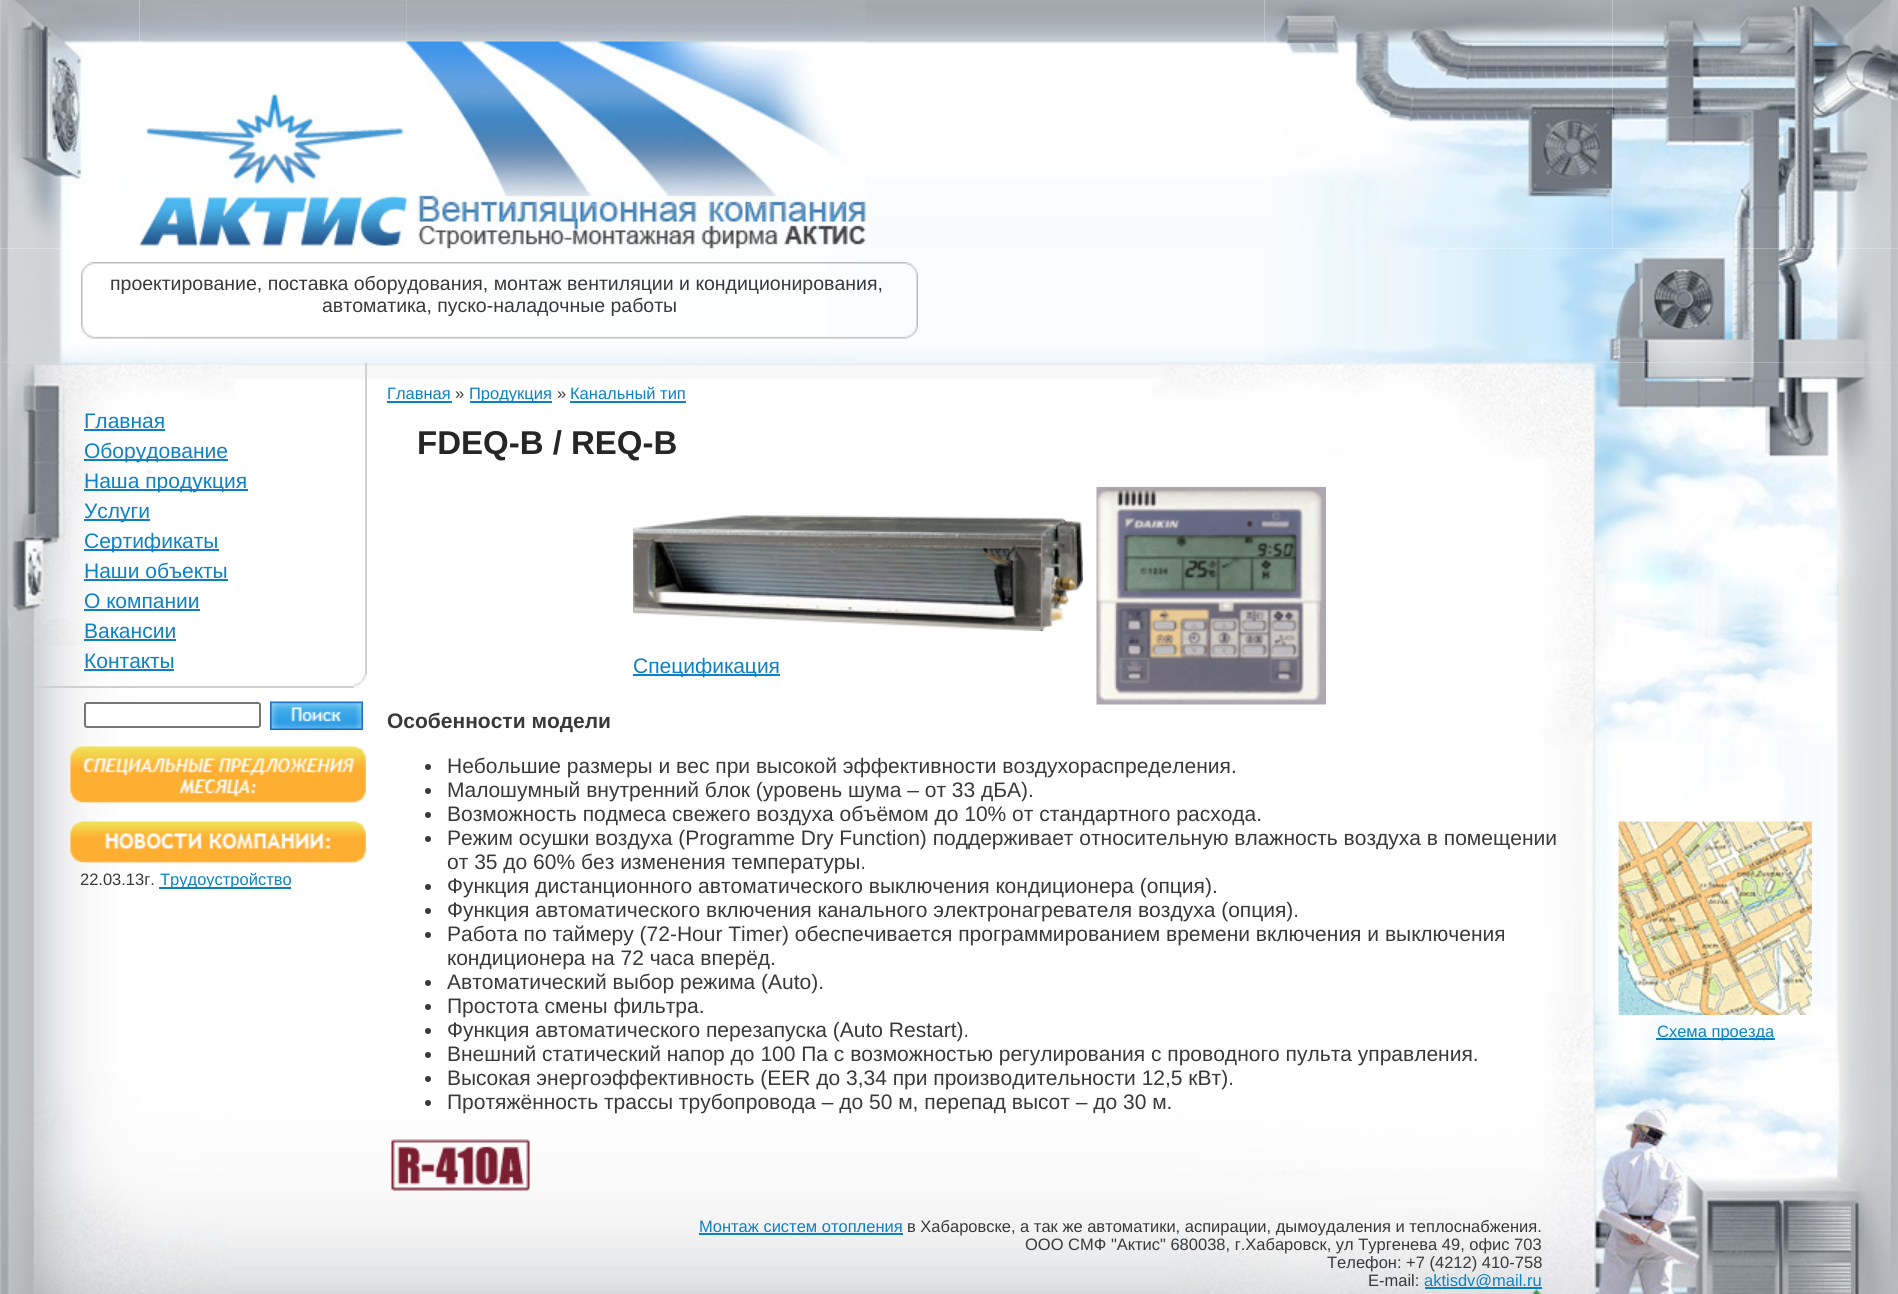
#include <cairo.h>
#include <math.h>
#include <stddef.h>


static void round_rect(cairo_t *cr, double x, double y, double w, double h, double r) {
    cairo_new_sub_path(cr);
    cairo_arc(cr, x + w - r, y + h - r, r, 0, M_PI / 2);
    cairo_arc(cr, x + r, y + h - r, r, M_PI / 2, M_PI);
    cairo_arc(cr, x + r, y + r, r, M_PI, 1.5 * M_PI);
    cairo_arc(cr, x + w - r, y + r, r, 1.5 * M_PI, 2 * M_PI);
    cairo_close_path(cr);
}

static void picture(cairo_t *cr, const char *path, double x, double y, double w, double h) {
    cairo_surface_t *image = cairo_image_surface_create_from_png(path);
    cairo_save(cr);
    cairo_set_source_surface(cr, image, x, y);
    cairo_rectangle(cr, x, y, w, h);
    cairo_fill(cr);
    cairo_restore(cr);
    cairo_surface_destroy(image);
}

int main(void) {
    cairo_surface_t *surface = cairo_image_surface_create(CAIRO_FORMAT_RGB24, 1898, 1294);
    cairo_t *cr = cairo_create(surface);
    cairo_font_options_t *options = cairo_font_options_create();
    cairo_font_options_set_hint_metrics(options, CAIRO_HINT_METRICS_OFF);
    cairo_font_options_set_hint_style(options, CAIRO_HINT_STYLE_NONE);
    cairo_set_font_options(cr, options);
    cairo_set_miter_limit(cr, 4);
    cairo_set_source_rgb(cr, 1, 1, 1);
    cairo_paint(cr);
    picture(cr, "img1.png", 0, 0, 140, 249);
    picture(cr, "img3.png", 406, 0, 859, 249);
    picture(cr, "img2.png", 139, 0, 268, 247);
    picture(cr, "img4.png", 406, 0, 460, 249);
    picture(cr, "img5.png", 1264, 0, 349, 249);
    picture(cr, "img6.png", 1612, 0, 286, 249);
    picture(cr, "img7.png", 0, 249, 1265, 114);
    picture(cr, "img11.png", 0, 362, 1898, 18);
    picture(cr, "img12.png", 0, 362, 132, 708);
    picture(cr, "img15.png", 0, 362, 235, 284);
    picture(cr, "img8.png", 0, 248, 857, 115);
    picture(cr, "img13.png", 1537, 362, 361, 631);
    picture(cr, "img16.png", 1152, 362, 746, 561);
    picture(cr, "img9.png", 1264, 248, 634, 115);
    picture(cr, "img10.png", 81, 262, 837, 77);
    cairo_select_font_face(cr, "Liberation Sans", CAIRO_FONT_SLANT_NORMAL, CAIRO_FONT_WEIGHT_NORMAL);
    cairo_set_font_size(cr, 19.5);
    cairo_set_source_rgb(cr, 0.224, 0.224, 0.224);
    cairo_move_to(cr, 110, 290);
    cairo_show_text(cr, "проектирование, поставка оборудования, монтаж вентиляции и кондиционирования,");
    cairo_move_to(cr, 322, 312);
    cairo_show_text(cr, "автоматика, пуско-наладочные работы");
    picture(cr, "img14.png", 227, 1070, 945, 224);
    picture(cr, "img17.png", 0, 1070, 227, 224);
    picture(cr, "img18.png", 1172, 993, 726, 301);
    cairo_set_font_size(cr, 21);
    cairo_set_source_rgb(cr, 0.047, 0.506, 0.773);
    cairo_move_to(cr, 84, 428);
    cairo_show_text(cr, "Главная");
    cairo_rectangle(cr, 84, 429, 81, 2);
    cairo_fill(cr);
    cairo_rectangle(cr, 84, 459, 144, 2);
    cairo_fill(cr);
    cairo_move_to(cr, 84, 458);
    cairo_show_text(cr, "Оборудование");
    cairo_rectangle(cr, 84, 489, 164, 2);
    cairo_fill(cr);
    cairo_move_to(cr, 84, 488);
    cairo_show_text(cr, "Наша продукция");
    cairo_rectangle(cr, 84, 519, 66, 2);
    cairo_fill(cr);
    cairo_move_to(cr, 84, 518);
    cairo_show_text(cr, "Услуги");
    cairo_rectangle(cr, 84, 549, 135, 2);
    cairo_fill(cr);
    cairo_move_to(cr, 84, 548);
    cairo_show_text(cr, "Сертификаты");
    cairo_move_to(cr, 84, 578);
    cairo_show_text(cr, "Наши объекты");
    cairo_rectangle(cr, 84, 579, 144, 2);
    cairo_fill(cr);
    cairo_move_to(cr, 84, 608);
    cairo_show_text(cr, "О компании");
    cairo_rectangle(cr, 84, 609, 116, 2);
    cairo_fill(cr);
    cairo_move_to(cr, 84, 638);
    cairo_show_text(cr, "Вакансии");
    cairo_rectangle(cr, 84, 639, 92, 2);
    cairo_fill(cr);
    cairo_move_to(cr, 84, 668);
    cairo_show_text(cr, "Контакты");
    cairo_rectangle(cr, 84, 669, 90, 2);
    cairo_fill(cr);
    cairo_set_source_rgb(cr, 0.816, 0.816, 0.816);
    cairo_rectangle(cr, 365, 363, 2, 312);
    cairo_fill(cr);
    cairo_rectangle(cr, 35, 686, 319, 2);
    cairo_fill(cr);
    picture(cr, "img19.png", 354, 674, 12, 13);
    cairo_set_source_rgb(cr, 1, 1, 1);
    round_rect(cr, 85, 703, 175, 24, 2);
    cairo_fill_preserve(cr);
    cairo_set_source_rgb(cr, 0.463, 0.463, 0.463);
    cairo_stroke(cr);
    picture(cr, "img20.png", 270, 701, 93, 29);
    picture(cr, "img21.png", 70, 746, 296, 58);
    picture(cr, "img22.png", 70, 821, 296, 43);
    cairo_set_font_size(cr, 16.5);
    cairo_set_source_rgb(cr, 0.224, 0.224, 0.224);
    cairo_move_to(cr, 80, 885);
    cairo_show_text(cr, "22.03.13г.");
    cairo_set_source_rgb(cr, 0.047, 0.506, 0.773);
    cairo_rectangle(cr, 159, 887, 132, 2);
    cairo_fill(cr);
    cairo_move_to(cr, 160, 885);
    cairo_show_text(cr, "Трудоустройство");
    cairo_move_to(cr, 387, 399);
    cairo_show_text(cr, "Главная");
    cairo_rectangle(cr, 387, 401, 65, 2);
    cairo_fill(cr);
    cairo_set_source_rgb(cr, 0.224, 0.224, 0.224);
    cairo_move_to(cr, 455, 399);
    cairo_show_text(cr, "»");
    cairo_set_source_rgb(cr, 0.047, 0.506, 0.773);
    cairo_rectangle(cr, 470, 401, 82, 2);
    cairo_fill(cr);
    cairo_move_to(cr, 469, 399);
    cairo_show_text(cr, "Продукция");
    cairo_set_source_rgb(cr, 0.224, 0.224, 0.224);
    cairo_move_to(cr, 557, 399);
    cairo_show_text(cr, "»");
    cairo_set_source_rgb(cr, 0.047, 0.506, 0.773);
    cairo_move_to(cr, 570, 399);
    cairo_show_text(cr, "Канальный тип");
    cairo_rectangle(cr, 570, 401, 116, 2);
    cairo_fill(cr);
    cairo_select_font_face(cr, "Liberation Sans", CAIRO_FONT_SLANT_NORMAL, CAIRO_FONT_WEIGHT_BOLD);
    cairo_set_font_size(cr, 33);
    cairo_set_source_rgb(cr, 0.149, 0.149, 0.149);
    cairo_move_to(cr, 417, 454);
    cairo_show_text(cr, "FDEQ-B / REQ-B");
    picture(cr, "img23.png", 633, 515, 450, 116);
    cairo_set_source_rgb(cr, 0.047, 0.506, 0.773);
    cairo_rectangle(cr, 633, 674, 147, 2);
    cairo_fill(cr);
    cairo_select_font_face(cr, "Liberation Sans", CAIRO_FONT_SLANT_NORMAL, CAIRO_FONT_WEIGHT_NORMAL);
    cairo_set_font_size(cr, 21);
    cairo_move_to(cr, 633, 673);
    cairo_show_text(cr, "Спецификация");
    picture(cr, "img24.png", 1096, 487, 230, 218);
    cairo_select_font_face(cr, "Liberation Sans", CAIRO_FONT_SLANT_NORMAL, CAIRO_FONT_WEIGHT_BOLD);
    cairo_set_source_rgb(cr, 0.224, 0.224, 0.224);
    cairo_move_to(cr, 387, 728);
    cairo_show_text(cr, "Особенности модели");
    cairo_new_path(cr);
    cairo_arc(cr, 428, 767, 3, 0, 2 * M_PI);
    cairo_fill(cr);
    cairo_select_font_face(cr, "Liberation Sans", CAIRO_FONT_SLANT_NORMAL, CAIRO_FONT_WEIGHT_NORMAL);
    cairo_move_to(cr, 447, 773);
    cairo_show_text(cr, "Небольшие размеры и вес при высокой эффективности воздухораспределения.");
    cairo_new_path(cr);
    cairo_arc(cr, 428, 791, 3, 0, 2 * M_PI);
    cairo_fill(cr);
    cairo_move_to(cr, 447, 797);
    cairo_show_text(cr, "Малошумный внутренний блок (уровень шума – от 33 дБА).");
    cairo_new_path(cr);
    cairo_arc(cr, 428, 815, 3, 0, 2 * M_PI);
    cairo_fill(cr);
    cairo_move_to(cr, 447, 821);
    cairo_show_text(cr, "Возможность подмеса свежего воздуха объёмом до 10% от стандартного расхода.");
    cairo_new_path(cr);
    cairo_arc(cr, 428, 839, 3, 0, 2 * M_PI);
    cairo_fill(cr);
    cairo_move_to(cr, 447, 845);
    cairo_show_text(cr, "Режим осушки воздуха (Programme Dry Function) поддерживает относительную влажность воздуха в помещении");
    cairo_move_to(cr, 447, 869);
    cairo_show_text(cr, "от 35 до 60% без изменения температуры.");
    cairo_new_path(cr);
    cairo_arc(cr, 428, 887, 3, 0, 2 * M_PI);
    cairo_fill(cr);
    cairo_move_to(cr, 447, 893);
    cairo_show_text(cr, "Функция дистанционного автоматического выключения кондиционера (опция).");
    cairo_new_path(cr);
    cairo_arc(cr, 428, 911, 3, 0, 2 * M_PI);
    cairo_fill(cr);
    cairo_move_to(cr, 447, 917);
    cairo_show_text(cr, "Функция автоматического включения канального электронагревателя воздуха (опция).");
    cairo_new_path(cr);
    cairo_arc(cr, 428, 935, 3, 0, 2 * M_PI);
    cairo_fill(cr);
    cairo_move_to(cr, 447, 941);
    cairo_show_text(cr, "Работа по таймеру (72-Hour Timer) обеспечивается программированием времени включения и выключения");
    cairo_move_to(cr, 447, 965);
    cairo_show_text(cr, "кондиционера на 72 часа вперёд.");
    cairo_new_path(cr);
    cairo_arc(cr, 428, 983, 3, 0, 2 * M_PI);
    cairo_fill(cr);
    cairo_move_to(cr, 447, 989);
    cairo_show_text(cr, "Автоматический выбор режима (Auto).");
    cairo_new_path(cr);
    cairo_arc(cr, 428, 1007, 3, 0, 2 * M_PI);
    cairo_fill(cr);
    cairo_move_to(cr, 447, 1013);
    cairo_show_text(cr, "Простота смены фильтра.");
    cairo_new_path(cr);
    cairo_arc(cr, 428, 1031, 3, 0, 2 * M_PI);
    cairo_fill(cr);
    cairo_move_to(cr, 447, 1037);
    cairo_show_text(cr, "Функция автоматического перезапуска (Auto Restart).");
    cairo_new_path(cr);
    cairo_arc(cr, 428, 1055, 3, 0, 2 * M_PI);
    cairo_fill(cr);
    cairo_move_to(cr, 447, 1061);
    cairo_show_text(cr, "Внешний статический напор до 100 Па с возможностью регулирования с проводного пульта управления.");
    cairo_new_path(cr);
    cairo_arc(cr, 428, 1079, 3, 0, 2 * M_PI);
    cairo_fill(cr);
    cairo_move_to(cr, 447, 1085);
    cairo_show_text(cr, "Высокая энергоэффективность (EER до 3,34 при производительности 12,5 кВт).");
    cairo_new_path(cr);
    cairo_arc(cr, 428, 1103, 3, 0, 2 * M_PI);
    cairo_fill(cr);
    cairo_move_to(cr, 447, 1109);
    cairo_show_text(cr, "Протяжённость трассы трубопровода – до 50 м, перепад высот – до 30 м.");
    picture(cr, "img25.png", 391, 1139, 139, 52);
    cairo_set_font_size(cr, 16.5);
    cairo_set_source_rgb(cr, 0.047, 0.506, 0.773);
    cairo_move_to(cr, 699, 1232);
    cairo_show_text(cr, "Монтаж систем отопления");
    cairo_rectangle(cr, 699, 1233, 204, 2);
    cairo_fill(cr);
    cairo_set_source_rgb(cr, 0.224, 0.224, 0.224);
    cairo_move_to(cr, 907, 1232);
    cairo_show_text(cr, "в Хабаровске, а так же автоматики, аспирации, дымоудаления и теплоснабжения.");
    cairo_move_to(cr, 1025, 1250);
    cairo_show_text(cr, "ООО СМФ \"Актис\" 680038, г.Хабаровск, ул Тургенева 49, офис 703");
    cairo_move_to(cr, 1327, 1268);
    cairo_show_text(cr, "Телефон: +7 (4212) 410-758");
    cairo_move_to(cr, 1368, 1286);
    cairo_show_text(cr, "E-mail:");
    cairo_set_source_rgb(cr, 0.047, 0.506, 0.773);
    cairo_rectangle(cr, 1425, 1287, 117, 2);
    cairo_fill(cr);
    cairo_move_to(cr, 1424, 1286);
    cairo_show_text(cr, "aktisdv@mail.ru");
    picture(cr, "img26.png", 1531, 1289, 10, 5);
    picture(cr, "img27.png", 1618, 821, 194, 194);
    cairo_rectangle(cr, 1656, 1038, 119, 2);
    cairo_fill(cr);
    cairo_move_to(cr, 1657, 1037);
    cairo_show_text(cr, "Схема проезда");
    cairo_surface_write_to_png(surface, "page.png");
    cairo_font_options_destroy(options);
    cairo_destroy(cr);
    cairo_surface_destroy(surface);
    return 0;
}
